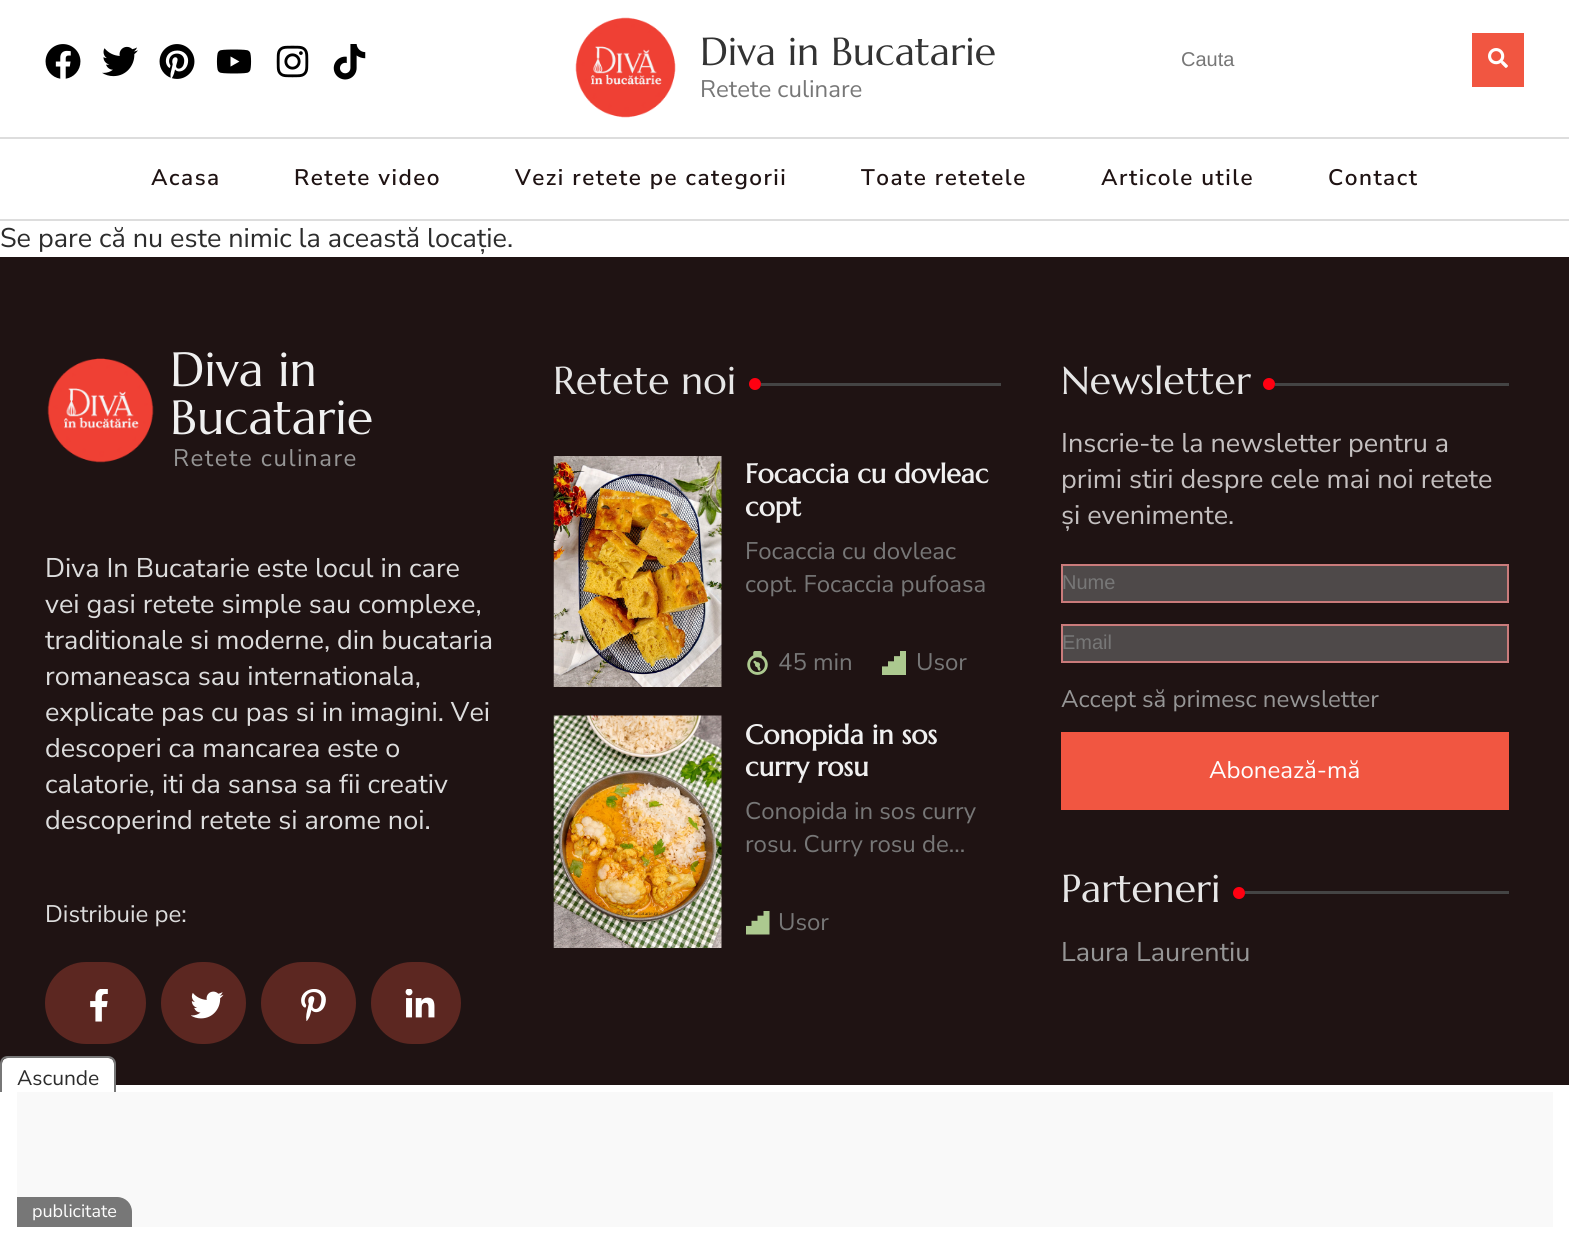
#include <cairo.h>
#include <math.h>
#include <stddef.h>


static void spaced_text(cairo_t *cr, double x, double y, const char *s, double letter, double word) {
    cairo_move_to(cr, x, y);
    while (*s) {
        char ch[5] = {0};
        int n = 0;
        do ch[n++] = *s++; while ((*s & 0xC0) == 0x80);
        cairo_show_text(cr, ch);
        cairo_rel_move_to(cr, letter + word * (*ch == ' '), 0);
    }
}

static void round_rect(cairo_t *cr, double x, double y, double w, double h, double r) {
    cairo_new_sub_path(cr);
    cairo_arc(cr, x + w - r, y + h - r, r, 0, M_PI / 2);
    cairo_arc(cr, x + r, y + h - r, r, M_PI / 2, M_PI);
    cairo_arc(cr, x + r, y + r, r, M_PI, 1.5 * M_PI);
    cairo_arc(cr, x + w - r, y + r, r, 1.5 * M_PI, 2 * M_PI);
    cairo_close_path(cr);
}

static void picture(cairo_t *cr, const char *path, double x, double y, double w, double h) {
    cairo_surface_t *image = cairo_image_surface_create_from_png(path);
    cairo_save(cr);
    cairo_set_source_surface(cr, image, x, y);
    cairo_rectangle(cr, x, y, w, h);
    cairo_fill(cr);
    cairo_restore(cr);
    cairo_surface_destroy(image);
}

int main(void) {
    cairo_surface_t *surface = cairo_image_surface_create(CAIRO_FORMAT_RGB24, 1569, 1236);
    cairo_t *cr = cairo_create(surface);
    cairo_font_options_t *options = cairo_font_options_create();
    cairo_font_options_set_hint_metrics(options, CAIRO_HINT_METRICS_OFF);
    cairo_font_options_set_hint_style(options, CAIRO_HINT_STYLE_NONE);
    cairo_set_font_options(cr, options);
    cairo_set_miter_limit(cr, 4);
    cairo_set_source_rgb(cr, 1, 1, 1);
    cairo_paint(cr);
    cairo_set_source_rgb(cr, 0.867, 0.867, 0.867);
    cairo_rectangle(cr, 0, 137, 1569, 2);
    cairo_fill(cr);
    picture(cr, "img1.png", 575, 17, 101, 101);
    cairo_select_font_face(cr, "Marcellus", CAIRO_FONT_SLANT_NORMAL, CAIRO_FONT_WEIGHT_NORMAL);
    cairo_set_font_size(cr, 39);
    cairo_set_source_rgb(cr, 0.2, 0.2, 0.2);
    cairo_move_to(cr, 700, 65);
    cairo_show_text(cr, "Diva in Bucatarie");
    cairo_select_font_face(cr, "Nunito Sans", CAIRO_FONT_SLANT_NORMAL, CAIRO_FONT_WEIGHT_NORMAL);
    cairo_set_font_size(cr, 24);
    cairo_set_source_rgb(cr, 0.467, 0.467, 0.467);
    cairo_move_to(cr, 700, 97);
    cairo_show_text(cr, "Retete culinare");
    cairo_set_source_rgb(cr, 0.867, 0.867, 0.867);
    cairo_rectangle(cr, 0, 219, 1569, 2);
    cairo_fill(cr);
    picture(cr, "img2.png", 45, 44, 36, 35);
    picture(cr, "img3.png", 102, 46, 36, 31);
    picture(cr, "img4.png", 159, 44, 36, 35);
    picture(cr, "img5.png", 216, 49, 36, 25);
    picture(cr, "img6.png", 276, 45, 33, 33);
    picture(cr, "img7.png", 333, 44, 33, 36);
    cairo_select_font_face(cr, "Liberation Sans", CAIRO_FONT_SLANT_NORMAL, CAIRO_FONT_WEIGHT_NORMAL);
    cairo_set_font_size(cr, 20);
    cairo_set_source_rgb(cr, 0.467, 0.467, 0.467);
    cairo_move_to(cr, 1181, 66);
    cairo_show_text(cr, "Cauta");
    cairo_set_source_rgb(cr, 0.945, 0.337, 0.255);
    cairo_rectangle(cr, 1472, 33, 52, 54);
    cairo_fill(cr);
    picture(cr, "img8.png", 1488, 48, 20, 20);
    cairo_select_font_face(cr, "Nunito Sans SemiBold", CAIRO_FONT_SLANT_NORMAL, CAIRO_FONT_WEIGHT_NORMAL);
    cairo_set_font_size(cr, 22.5);
    cairo_set_source_rgb(cr, 0.122, 0.078, 0.078);
    spaced_text(cr, 151, 185, "Acasa", 1.5, 0);
    spaced_text(cr, 294, 185, "Retete video", 1.5, 0);
    spaced_text(cr, 515, 185, "Vezi retete pe categorii", 1.5, 0);
    spaced_text(cr, 861, 185, "Toate retetele", 1.5, 0);
    spaced_text(cr, 1101, 185, "Articole utile", 1.5, 0);
    spaced_text(cr, 1328, 185, "Contact", 1.5, 0);
    cairo_select_font_face(cr, "Nunito Sans", CAIRO_FONT_SLANT_NORMAL, CAIRO_FONT_WEIGHT_NORMAL);
    cairo_set_font_size(cr, 27);
    cairo_set_source_rgb(cr, 0.173, 0.173, 0.173);
    cairo_move_to(cr, 0, 247);
    cairo_show_text(cr, "Se pare că nu este nimic la această locație.");
    cairo_set_source_rgb(cr, 0.122, 0.078, 0.078);
    cairo_rectangle(cr, 0, 257, 1569, 828);
    cairo_fill(cr);
    picture(cr, "img9.png", 47, 358, 107, 105);
    cairo_select_font_face(cr, "Marcellus", CAIRO_FONT_SLANT_NORMAL, CAIRO_FONT_WEIGHT_NORMAL);
    cairo_set_font_size(cr, 48);
    cairo_set_source_rgb(cr, 0.941, 0.941, 0.941);
    cairo_move_to(cr, 170, 386);
    cairo_show_text(cr, "Diva in");
    cairo_move_to(cr, 170, 434);
    cairo_show_text(cr, "Bucatarie");
    cairo_select_font_face(cr, "Nunito Sans", CAIRO_FONT_SLANT_NORMAL, CAIRO_FONT_WEIGHT_NORMAL);
    cairo_set_font_size(cr, 24);
    cairo_set_source_rgb(cr, 0.588, 0.588, 0.588);
    spaced_text(cr, 173, 466, "Retete culinare", 1.5, 0);
    cairo_set_font_size(cr, 27);
    cairo_set_source_rgb(cr, 0.867, 0.867, 0.867);
    cairo_move_to(cr, 45, 577);
    cairo_show_text(cr, "Diva In Bucatarie este locul in care");
    cairo_move_to(cr, 45, 613);
    cairo_show_text(cr, "vei gasi retete simple sau complexe,");
    cairo_move_to(cr, 45, 649);
    cairo_show_text(cr, "traditionale si moderne, din bucataria");
    cairo_move_to(cr, 45, 685);
    cairo_show_text(cr, "romaneasca sau internationala,");
    cairo_move_to(cr, 45, 721);
    cairo_show_text(cr, "explicate pas cu pas si in imagini. Vei");
    cairo_move_to(cr, 45, 757);
    cairo_show_text(cr, "descoperi ca mancarea este o");
    cairo_move_to(cr, 45, 793);
    cairo_show_text(cr, "calatorie, iti da sansa sa fii creativ");
    cairo_move_to(cr, 45, 829);
    cairo_show_text(cr, "descoperind retete si arome noi.");
    cairo_set_font_size(cr, 24);
    cairo_move_to(cr, 45, 922);
    cairo_show_text(cr, "Distribuie pe:");
    cairo_set_source_rgb(cr, 0.361, 0.153, 0.129);
    round_rect(cr, 45, 962, 101, 82, 41);
    cairo_fill(cr);
    picture(cr, "img10.png", 90, 989, 18, 33);
    round_rect(cr, 161, 962, 85, 82, 41);
    cairo_fill(cr);
    picture(cr, "img11.png", 191, 991, 33, 28);
    round_rect(cr, 261, 962, 95, 82, 41);
    cairo_fill(cr);
    picture(cr, "img12.png", 301, 989, 25, 32);
    round_rect(cr, 371, 962, 90, 82, 41);
    cairo_fill(cr);
    picture(cr, "img13.png", 405, 989, 30, 29);
    cairo_select_font_face(cr, "Marcellus", CAIRO_FONT_SLANT_NORMAL, CAIRO_FONT_WEIGHT_NORMAL);
    cairo_set_font_size(cr, 39);
    cairo_set_source_rgb(cr, 0.902, 0.902, 0.902);
    cairo_move_to(cr, 553, 394);
    cairo_show_text(cr, "Retete noi");
    cairo_set_source_rgb(cr, 1, 0, 0.067);
    cairo_new_path(cr);
    cairo_arc(cr, 755, 384, 6, 0, 2 * M_PI);
    cairo_fill(cr);
    cairo_set_source_rgb(cr, 0.267, 0.267, 0.267);
    cairo_rectangle(cr, 761, 383, 240, 3);
    cairo_fill(cr);
    picture(cr, "img14.png", 553, 456, 169, 231);
    cairo_select_font_face(cr, "Marcellus", CAIRO_FONT_SLANT_NORMAL, CAIRO_FONT_WEIGHT_BOLD);
    cairo_set_font_size(cr, 27);
    cairo_set_source_rgb(cr, 0.941, 0.941, 0.941);
    cairo_move_to(cr, 745, 483);
    cairo_show_text(cr, "Focaccia cu dovleac");
    cairo_move_to(cr, 745, 516);
    cairo_show_text(cr, "copt");
    cairo_select_font_face(cr, "Nunito Sans", CAIRO_FONT_SLANT_NORMAL, CAIRO_FONT_WEIGHT_NORMAL);
    cairo_set_font_size(cr, 24);
    cairo_set_source_rgb(cr, 0.467, 0.467, 0.467);
    cairo_move_to(cr, 745, 559);
    cairo_show_text(cr, "Focaccia cu dovleac");
    cairo_move_to(cr, 745, 592);
    cairo_show_text(cr, "copt. Focaccia pufoasa");
    picture(cr, "img15.png", 747, 651, 21, 24);
    cairo_move_to(cr, 778, 670);
    cairo_show_text(cr, "45 min");
    picture(cr, "img16.png", 882, 651, 24, 24);
    cairo_move_to(cr, 916, 670);
    cairo_show_text(cr, "Usor");
    picture(cr, "img17.png", 553, 715, 169, 233);
    cairo_select_font_face(cr, "Marcellus", CAIRO_FONT_SLANT_NORMAL, CAIRO_FONT_WEIGHT_BOLD);
    cairo_set_font_size(cr, 27);
    cairo_set_source_rgb(cr, 0.941, 0.941, 0.941);
    cairo_move_to(cr, 745, 744);
    cairo_show_text(cr, "Conopida in sos");
    cairo_move_to(cr, 745, 776);
    cairo_show_text(cr, "curry rosu");
    cairo_select_font_face(cr, "Nunito Sans", CAIRO_FONT_SLANT_NORMAL, CAIRO_FONT_WEIGHT_NORMAL);
    cairo_set_font_size(cr, 24);
    cairo_set_source_rgb(cr, 0.467, 0.467, 0.467);
    cairo_move_to(cr, 745, 819);
    cairo_show_text(cr, "Conopida in sos curry");
    cairo_move_to(cr, 745, 852);
    cairo_show_text(cr, "rosu. Curry rosu de…");
    picture(cr, "img18.png", 746, 911, 24, 24);
    cairo_move_to(cr, 778, 930);
    cairo_show_text(cr, "Usor");
    cairo_select_font_face(cr, "Marcellus", CAIRO_FONT_SLANT_NORMAL, CAIRO_FONT_WEIGHT_NORMAL);
    cairo_set_font_size(cr, 39);
    cairo_set_source_rgb(cr, 0.902, 0.902, 0.902);
    cairo_move_to(cr, 1061, 394);
    cairo_show_text(cr, "Newsletter");
    cairo_set_source_rgb(cr, 1, 0, 0.067);
    cairo_new_path(cr);
    cairo_arc(cr, 1269, 384, 6, 0, 2 * M_PI);
    cairo_fill(cr);
    cairo_set_source_rgb(cr, 0.267, 0.267, 0.267);
    cairo_rectangle(cr, 1275, 383, 234, 3);
    cairo_fill(cr);
    cairo_select_font_face(cr, "Nunito Sans", CAIRO_FONT_SLANT_NORMAL, CAIRO_FONT_WEIGHT_NORMAL);
    cairo_set_font_size(cr, 27);
    cairo_set_source_rgb(cr, 0.769, 0.753, 0.753);
    cairo_move_to(cr, 1061, 452);
    cairo_show_text(cr, "Inscrie-te la newsletter pentru a");
    cairo_move_to(cr, 1061, 488);
    cairo_show_text(cr, "primi stiri despre cele mai noi retete");
    cairo_move_to(cr, 1061, 524);
    cairo_show_text(cr, "și evenimente.");
    cairo_set_source_rgb(cr, 0.306, 0.286, 0.286);
    cairo_rectangle(cr, 1062, 565, 446, 37);
    cairo_fill_preserve(cr);
    cairo_set_source_rgb(cr, 0.792, 0.482, 0.482);
    cairo_stroke(cr);
    cairo_select_font_face(cr, "Liberation Sans", CAIRO_FONT_SLANT_NORMAL, CAIRO_FONT_WEIGHT_NORMAL);
    cairo_set_font_size(cr, 20);
    cairo_set_source_rgb(cr, 0.467, 0.467, 0.467);
    cairo_move_to(cr, 1062, 589);
    cairo_show_text(cr, "Nume");
    cairo_set_source_rgb(cr, 0.306, 0.286, 0.286);
    cairo_rectangle(cr, 1062, 625, 446, 37);
    cairo_fill_preserve(cr);
    cairo_set_source_rgb(cr, 0.792, 0.482, 0.482);
    cairo_stroke(cr);
    cairo_set_source_rgb(cr, 0.467, 0.467, 0.467);
    cairo_move_to(cr, 1062, 649);
    cairo_show_text(cr, "Email");
    cairo_select_font_face(cr, "Nunito Sans", CAIRO_FONT_SLANT_NORMAL, CAIRO_FONT_WEIGHT_NORMAL);
    cairo_set_font_size(cr, 24);
    cairo_set_source_rgb(cr, 0.588, 0.588, 0.588);
    cairo_move_to(cr, 1061, 707);
    cairo_show_text(cr, "Accept să primesc newsletter");
    cairo_set_source_rgb(cr, 0.945, 0.337, 0.255);
    cairo_rectangle(cr, 1061, 732, 448, 78);
    cairo_fill(cr);
    cairo_set_source_rgb(cr, 0.996, 0.996, 0.996);
    cairo_move_to(cr, 1209, 778);
    cairo_show_text(cr, "Abonează-mă");
    cairo_select_font_face(cr, "Marcellus", CAIRO_FONT_SLANT_NORMAL, CAIRO_FONT_WEIGHT_NORMAL);
    cairo_set_font_size(cr, 39);
    cairo_set_source_rgb(cr, 0.902, 0.902, 0.902);
    cairo_move_to(cr, 1061, 902);
    cairo_show_text(cr, "Parteneri");
    cairo_set_source_rgb(cr, 1, 0, 0.067);
    cairo_new_path(cr);
    cairo_arc(cr, 1239, 893, 6, 0, 2 * M_PI);
    cairo_fill(cr);
    cairo_set_source_rgb(cr, 0.267, 0.267, 0.267);
    cairo_rectangle(cr, 1245, 891, 264, 3);
    cairo_fill(cr);
    cairo_select_font_face(cr, "Nunito Sans", CAIRO_FONT_SLANT_NORMAL, CAIRO_FONT_WEIGHT_NORMAL);
    cairo_set_font_size(cr, 27);
    cairo_set_source_rgb(cr, 0.588, 0.588, 0.588);
    cairo_move_to(cr, 1061, 961);
    cairo_show_text(cr, "Laura Laurentiu");
    cairo_set_source_rgb(cr, 1, 1, 1);
    cairo_new_path(cr);
    cairo_move_to(cr, 8, 1058);
    cairo_line_to(cr, 108, 1058);
    cairo_curve_to(cr, 111.5, 1058, 114, 1060.5, 114, 1064);
    cairo_line_to(cr, 114, 1092);
    cairo_line_to(cr, 2, 1092);
    cairo_line_to(cr, 2, 1064);
    cairo_curve_to(cr, 2, 1060.5, 4.5, 1058, 8, 1058);
    cairo_close_path(cr);
    cairo_fill(cr);
    cairo_set_source_rgb(cr, 0.467, 0.467, 0.467);
    cairo_set_fill_rule(cr, CAIRO_FILL_RULE_EVEN_ODD);
    cairo_new_path(cr);
    cairo_move_to(cr, 8, 1056);
    cairo_line_to(cr, 108, 1056);
    cairo_curve_to(cr, 112, 1056, 116, 1059, 116, 1064);
    cairo_line_to(cr, 116, 1092);
    cairo_line_to(cr, 0, 1092);
    cairo_line_to(cr, 0, 1064);
    cairo_curve_to(cr, 0, 1059, 3, 1056, 8, 1056);
    cairo_close_path(cr);
    cairo_move_to(cr, 8, 1058);
    cairo_line_to(cr, 108, 1058);
    cairo_curve_to(cr, 111, 1058, 114, 1060, 114, 1064);
    cairo_line_to(cr, 114, 1092);
    cairo_line_to(cr, 2, 1092);
    cairo_line_to(cr, 2, 1064);
    cairo_curve_to(cr, 2, 1060, 4, 1058, 8, 1058);
    cairo_close_path(cr);
    cairo_fill(cr);
    cairo_set_font_size(cr, 21);
    cairo_set_source_rgb(cr, 0.173, 0.173, 0.173);
    cairo_move_to(cr, 17, 1085);
    cairo_show_text(cr, "Ascunde");
    cairo_set_source_rgb(cr, 0.976, 0.976, 0.976);
    cairo_rectangle(cr, 17, 1092, 1536, 135);
    cairo_fill(cr);
    cairo_set_source_rgb(cr, 0.467, 0.467, 0.467);
    cairo_new_path(cr);
    cairo_move_to(cr, 17, 1197);
    cairo_line_to(cr, 117, 1197);
    cairo_curve_to(cr, 125.5, 1197, 132, 1203.5, 132, 1212);
    cairo_line_to(cr, 132, 1227);
    cairo_line_to(cr, 17, 1227);
    cairo_close_path(cr);
    cairo_fill(cr);
    cairo_set_font_size(cr, 18);
    cairo_set_source_rgb(cr, 0.996, 0.996, 0.996);
    cairo_move_to(cr, 32, 1217);
    cairo_show_text(cr, "publicitate");
    cairo_surface_write_to_png(surface, "page.png");
    cairo_font_options_destroy(options);
    cairo_destroy(cr);
    cairo_surface_destroy(surface);
    return 0;
}
